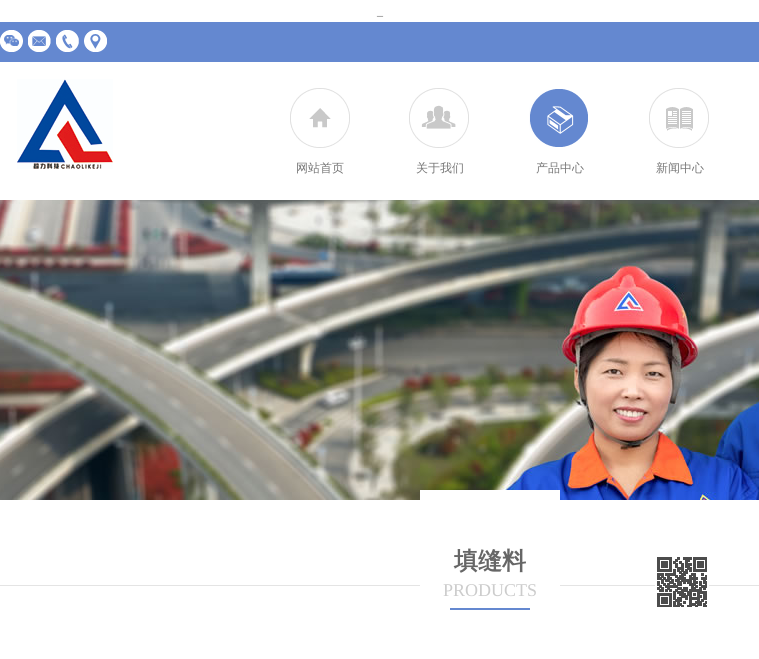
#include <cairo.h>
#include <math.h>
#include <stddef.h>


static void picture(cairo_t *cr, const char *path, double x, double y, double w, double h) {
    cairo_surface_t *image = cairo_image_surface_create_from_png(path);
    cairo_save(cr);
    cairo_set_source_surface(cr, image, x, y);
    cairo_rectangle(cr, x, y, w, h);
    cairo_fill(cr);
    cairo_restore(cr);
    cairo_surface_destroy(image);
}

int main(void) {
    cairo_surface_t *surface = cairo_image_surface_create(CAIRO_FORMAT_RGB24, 759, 659);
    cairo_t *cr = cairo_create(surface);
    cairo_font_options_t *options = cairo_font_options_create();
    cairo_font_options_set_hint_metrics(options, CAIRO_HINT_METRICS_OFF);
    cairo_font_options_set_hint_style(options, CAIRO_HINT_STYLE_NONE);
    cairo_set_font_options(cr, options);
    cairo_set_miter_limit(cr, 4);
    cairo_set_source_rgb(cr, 1, 1, 1);
    cairo_paint(cr);
    cairo_select_font_face(cr, "Liberation Serif", CAIRO_FONT_SLANT_NORMAL, CAIRO_FONT_WEIGHT_NORMAL);
    cairo_set_font_size(cr, 12);
    cairo_set_source_rgb(cr, 0.4, 0.4, 0.4);
    cairo_move_to(cr, 377, 15);
    cairo_show_text(cr, "_");
    cairo_set_source_rgb(cr, 0.392, 0.533, 0.816);
    cairo_rectangle(cr, 0, 22, 759, 40);
    cairo_fill(cr);
    picture(cr, "img1.png", 0, 30, 23, 22);
    picture(cr, "img2.png", 28, 30, 23, 22);
    picture(cr, "img3.png", 56, 30, 23, 22);
    picture(cr, "img4.png", 84, 30, 23, 22);
    picture(cr, "img5.png", 17, 79, 96, 90);
    picture(cr, "img6.png", 290, 88, 60, 60);
    cairo_select_font_face(cr, "WenQuanYi Zen Hei Medium", CAIRO_FONT_SLANT_NORMAL, CAIRO_FONT_WEIGHT_NORMAL);
    cairo_set_source_rgb(cr, 0.467, 0.467, 0.467);
    cairo_move_to(cr, 296, 172);
    cairo_show_text(cr, "网站首页");
    picture(cr, "img7.png", 409, 88, 60, 60);
    cairo_move_to(cr, 416, 172);
    cairo_show_text(cr, "关于我们");
    picture(cr, "img8.png", 529, 89, 59, 58);
    cairo_move_to(cr, 536, 172);
    cairo_show_text(cr, "产品中心");
    picture(cr, "img9.png", 649, 88, 60, 60);
    cairo_move_to(cr, 656, 172);
    cairo_show_text(cr, "新闻中心");
    picture(cr, "img10.png", 0, 200, 759, 300);
    cairo_set_source_rgb(cr, 0.894, 0.894, 0.894);
    cairo_rectangle(cr, 0, 585, 759, 1);
    cairo_fill(cr);
    cairo_set_source_rgb(cr, 1, 1, 1);
    cairo_rectangle(cr, 420, 490, 140, 96);
    cairo_fill(cr);
    cairo_select_font_face(cr, "WenQuanYi Zen Hei", CAIRO_FONT_SLANT_NORMAL, CAIRO_FONT_WEIGHT_BOLD);
    cairo_set_font_size(cr, 24);
    cairo_set_source_rgb(cr, 0.4, 0.4, 0.4);
    cairo_move_to(cr, 454, 569);
    cairo_show_text(cr, "填缝料");
    cairo_select_font_face(cr, "Liberation Serif", CAIRO_FONT_SLANT_NORMAL, CAIRO_FONT_WEIGHT_NORMAL);
    cairo_set_font_size(cr, 18);
    cairo_set_source_rgb(cr, 0.8, 0.8, 0.8);
    cairo_move_to(cr, 443, 596);
    cairo_show_text(cr, "PRODUCTS");
    cairo_set_source_rgb(cr, 0.392, 0.533, 0.816);
    cairo_rectangle(cr, 450, 608, 80, 2);
    cairo_fill(cr);
    picture(cr, "img11.png", 655, 557, 54, 50);
    cairo_surface_write_to_png(surface, "page.png");
    cairo_font_options_destroy(options);
    cairo_destroy(cr);
    cairo_surface_destroy(surface);
    return 0;
}
